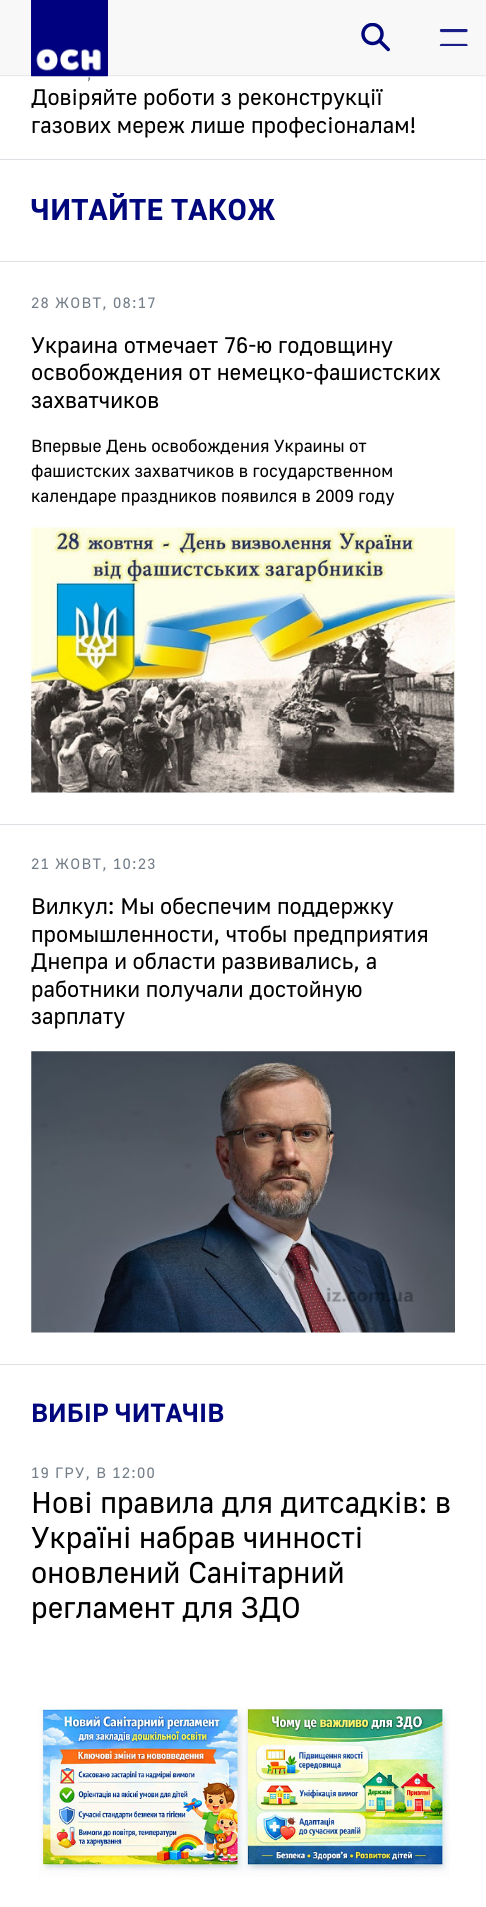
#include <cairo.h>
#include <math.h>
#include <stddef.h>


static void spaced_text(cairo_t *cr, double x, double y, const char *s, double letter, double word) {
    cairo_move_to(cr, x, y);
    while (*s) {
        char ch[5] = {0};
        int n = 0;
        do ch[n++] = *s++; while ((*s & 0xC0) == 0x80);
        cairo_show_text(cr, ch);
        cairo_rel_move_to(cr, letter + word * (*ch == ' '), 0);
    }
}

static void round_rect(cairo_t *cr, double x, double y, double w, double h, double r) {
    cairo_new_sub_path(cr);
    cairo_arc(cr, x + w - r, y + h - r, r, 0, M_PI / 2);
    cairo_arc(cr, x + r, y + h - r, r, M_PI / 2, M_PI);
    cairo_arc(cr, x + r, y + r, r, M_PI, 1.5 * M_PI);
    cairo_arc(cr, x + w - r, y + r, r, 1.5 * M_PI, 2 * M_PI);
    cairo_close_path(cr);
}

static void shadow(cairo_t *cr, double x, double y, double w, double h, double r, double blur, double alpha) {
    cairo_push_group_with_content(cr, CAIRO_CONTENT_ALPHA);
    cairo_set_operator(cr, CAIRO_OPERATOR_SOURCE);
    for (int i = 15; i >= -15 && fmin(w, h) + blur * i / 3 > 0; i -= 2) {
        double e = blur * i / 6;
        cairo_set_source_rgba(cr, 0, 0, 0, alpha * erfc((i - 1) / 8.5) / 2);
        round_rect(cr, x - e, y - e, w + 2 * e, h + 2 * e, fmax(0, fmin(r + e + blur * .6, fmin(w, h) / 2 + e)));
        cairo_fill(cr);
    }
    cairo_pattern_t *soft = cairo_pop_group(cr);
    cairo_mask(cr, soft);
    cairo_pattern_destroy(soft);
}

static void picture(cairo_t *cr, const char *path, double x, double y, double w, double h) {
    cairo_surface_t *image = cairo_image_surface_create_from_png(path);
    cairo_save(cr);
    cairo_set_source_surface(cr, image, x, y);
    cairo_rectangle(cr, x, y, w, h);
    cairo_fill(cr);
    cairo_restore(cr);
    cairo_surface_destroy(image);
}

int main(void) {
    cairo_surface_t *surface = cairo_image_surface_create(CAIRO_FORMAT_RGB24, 486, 1907);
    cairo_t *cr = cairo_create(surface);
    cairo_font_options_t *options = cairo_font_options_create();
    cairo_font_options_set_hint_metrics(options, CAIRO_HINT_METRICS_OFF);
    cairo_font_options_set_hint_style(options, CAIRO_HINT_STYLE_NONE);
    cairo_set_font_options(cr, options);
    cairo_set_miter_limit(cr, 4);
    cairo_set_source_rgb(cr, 1, 1, 1);
    cairo_paint(cr);
    cairo_set_source_rgb(cr, 0, 0, 0);
    shadow(cr, 0, 1, 486, 75, 0, 0.5, 0.1);
    cairo_set_source_rgb(cr, 0.969, 0.969, 0.969);
    cairo_rectangle(cr, 0, 0, 486, 75);
    cairo_fill(cr);
    cairo_set_source_rgb(cr, 0.094, 0.027, 0.478);
    cairo_rectangle(cr, 31, 0, 77, 76);
    cairo_fill(cr);
    picture(cr, "img1.png", 31, 0, 77, 77);
    picture(cr, "img2.png", 361, 23, 29, 29);
    cairo_save(cr);
    cairo_rectangle(cr, 439, 29, 30, 17);
    cairo_clip(cr);
    cairo_new_path(cr);
    cairo_move_to(cr, 441.5, 30.5);
    cairo_line_to(cr, 466, 30.5);
    cairo_move_to(cr, 441.5, 45.5);
    cairo_line_to(cr, 466, 45.5);
    cairo_set_source_rgb(cr, 0.098, 0.122, 0.529);
    cairo_set_line_width(cr, 3.3);
    cairo_set_line_cap(cr, CAIRO_LINE_CAP_ROUND);
    cairo_stroke(cr);
    cairo_restore(cr);
    cairo_select_font_face(cr, "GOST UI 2", CAIRO_FONT_SLANT_NORMAL, CAIRO_FONT_WEIGHT_NORMAL);
    cairo_set_font_size(cr, 15);
    cairo_set_source_rgb(cr, 0.455, 0.494, 0.537);
    spaced_text(cr, 87, 79, ",", 1.25, 0);
    cairo_set_font_size(cr, 22.5);
    cairo_set_source_rgb(cr, 0, 0, 0);
    cairo_move_to(cr, 31, 105);
    cairo_show_text(cr, "Довіряйте роботи з реконструкції");
    cairo_move_to(cr, 31, 133);
    cairo_show_text(cr, "газових мереж лише професіоналам!");
    cairo_set_source_rgb(cr, 0.875, 0.875, 0.902);
    cairo_rectangle(cr, 0, 159, 486, 1);
    cairo_fill(cr);
    cairo_select_font_face(cr, "GOST UI 2", CAIRO_FONT_SLANT_NORMAL, CAIRO_FONT_WEIGHT_BOLD);
    cairo_set_font_size(cr, 30);
    cairo_set_source_rgb(cr, 0, 0.027, 0.482);
    cairo_move_to(cr, 31, 220);
    cairo_show_text(cr, "ЧИТАЙТЕ ТАКОЖ");
    cairo_set_source_rgb(cr, 0.875, 0.875, 0.902);
    cairo_rectangle(cr, 0, 261, 486, 1);
    cairo_fill(cr);
    cairo_rectangle(cr, 0, 824, 486, 1);
    cairo_fill(cr);
    cairo_select_font_face(cr, "GOST UI 2", CAIRO_FONT_SLANT_NORMAL, CAIRO_FONT_WEIGHT_NORMAL);
    cairo_set_font_size(cr, 15);
    cairo_set_source_rgb(cr, 0.455, 0.494, 0.537);
    spaced_text(cr, 31, 308, "28 ЖОВТ, 08:17", 1.25, 0);
    cairo_set_font_size(cr, 22.5);
    cairo_set_source_rgb(cr, 0, 0, 0);
    cairo_move_to(cr, 31, 353);
    cairo_show_text(cr, "Украина отмечает 76-ю годовщину");
    cairo_move_to(cr, 31, 380);
    cairo_show_text(cr, "освобождения от немецко-фашистских");
    cairo_move_to(cr, 31, 408);
    cairo_show_text(cr, "захватчиков");
    cairo_set_font_size(cr, 17.5);
    cairo_move_to(cr, 31, 452);
    cairo_show_text(cr, "Впервые День освобождения Украины от");
    cairo_move_to(cr, 31, 477);
    cairo_show_text(cr, "фашистских захватчиков в государственном");
    cairo_move_to(cr, 31, 502);
    cairo_show_text(cr, "календаре праздников появился в 2009 году");
    picture(cr, "img3.png", 31, 527, 424, 266);
    cairo_set_font_size(cr, 15);
    cairo_set_source_rgb(cr, 0.455, 0.494, 0.537);
    spaced_text(cr, 31, 869, "21 ЖОВТ, 10:23", 1.25, 0);
    cairo_set_font_size(cr, 22.5);
    cairo_set_source_rgb(cr, 0, 0, 0);
    cairo_move_to(cr, 31, 914);
    cairo_show_text(cr, "Вилкул: Мы обеспечим поддержку");
    cairo_move_to(cr, 31, 942);
    cairo_show_text(cr, "промышленности, чтобы предприятия");
    cairo_move_to(cr, 31, 969);
    cairo_show_text(cr, "Днепра и области развивались, а");
    cairo_move_to(cr, 31, 997);
    cairo_show_text(cr, "работники получали достойную");
    cairo_move_to(cr, 31, 1024);
    cairo_show_text(cr, "зарплату");
    picture(cr, "img4.png", 31, 1051, 424, 282);
    cairo_set_source_rgb(cr, 0.875, 0.875, 0.902);
    cairo_rectangle(cr, 0, 1364, 486, 1);
    cairo_fill(cr);
    cairo_select_font_face(cr, "GOST UI 2", CAIRO_FONT_SLANT_NORMAL, CAIRO_FONT_WEIGHT_BOLD);
    cairo_set_font_size(cr, 26.25);
    cairo_set_source_rgb(cr, 0, 0.027, 0.482);
    cairo_move_to(cr, 31, 1422);
    cairo_show_text(cr, "ВИБІР ЧИТАЧІВ");
    cairo_select_font_face(cr, "GOST UI 2", CAIRO_FONT_SLANT_NORMAL, CAIRO_FONT_WEIGHT_NORMAL);
    cairo_set_font_size(cr, 15);
    cairo_set_source_rgb(cr, 0.455, 0.494, 0.537);
    spaced_text(cr, 31, 1478, "19 ГРУ, В 12:00", 1.25, 0);
    cairo_set_font_size(cr, 30);
    cairo_set_source_rgb(cr, 0, 0, 0);
    cairo_move_to(cr, 31, 1513);
    cairo_show_text(cr, "Нові правила для дитсадків: в");
    cairo_move_to(cr, 31, 1548);
    cairo_show_text(cr, "Україні набрав чинності");
    cairo_move_to(cr, 31, 1583);
    cairo_show_text(cr, "оновлений Санітарний");
    cairo_move_to(cr, 31, 1618);
    cairo_show_text(cr, "регламент для ЗДО");
    picture(cr, "img5.png", 38, 1707, 412, 170);
    cairo_surface_write_to_png(surface, "page.png");
    cairo_font_options_destroy(options);
    cairo_destroy(cr);
    cairo_surface_destroy(surface);
    return 0;
}
